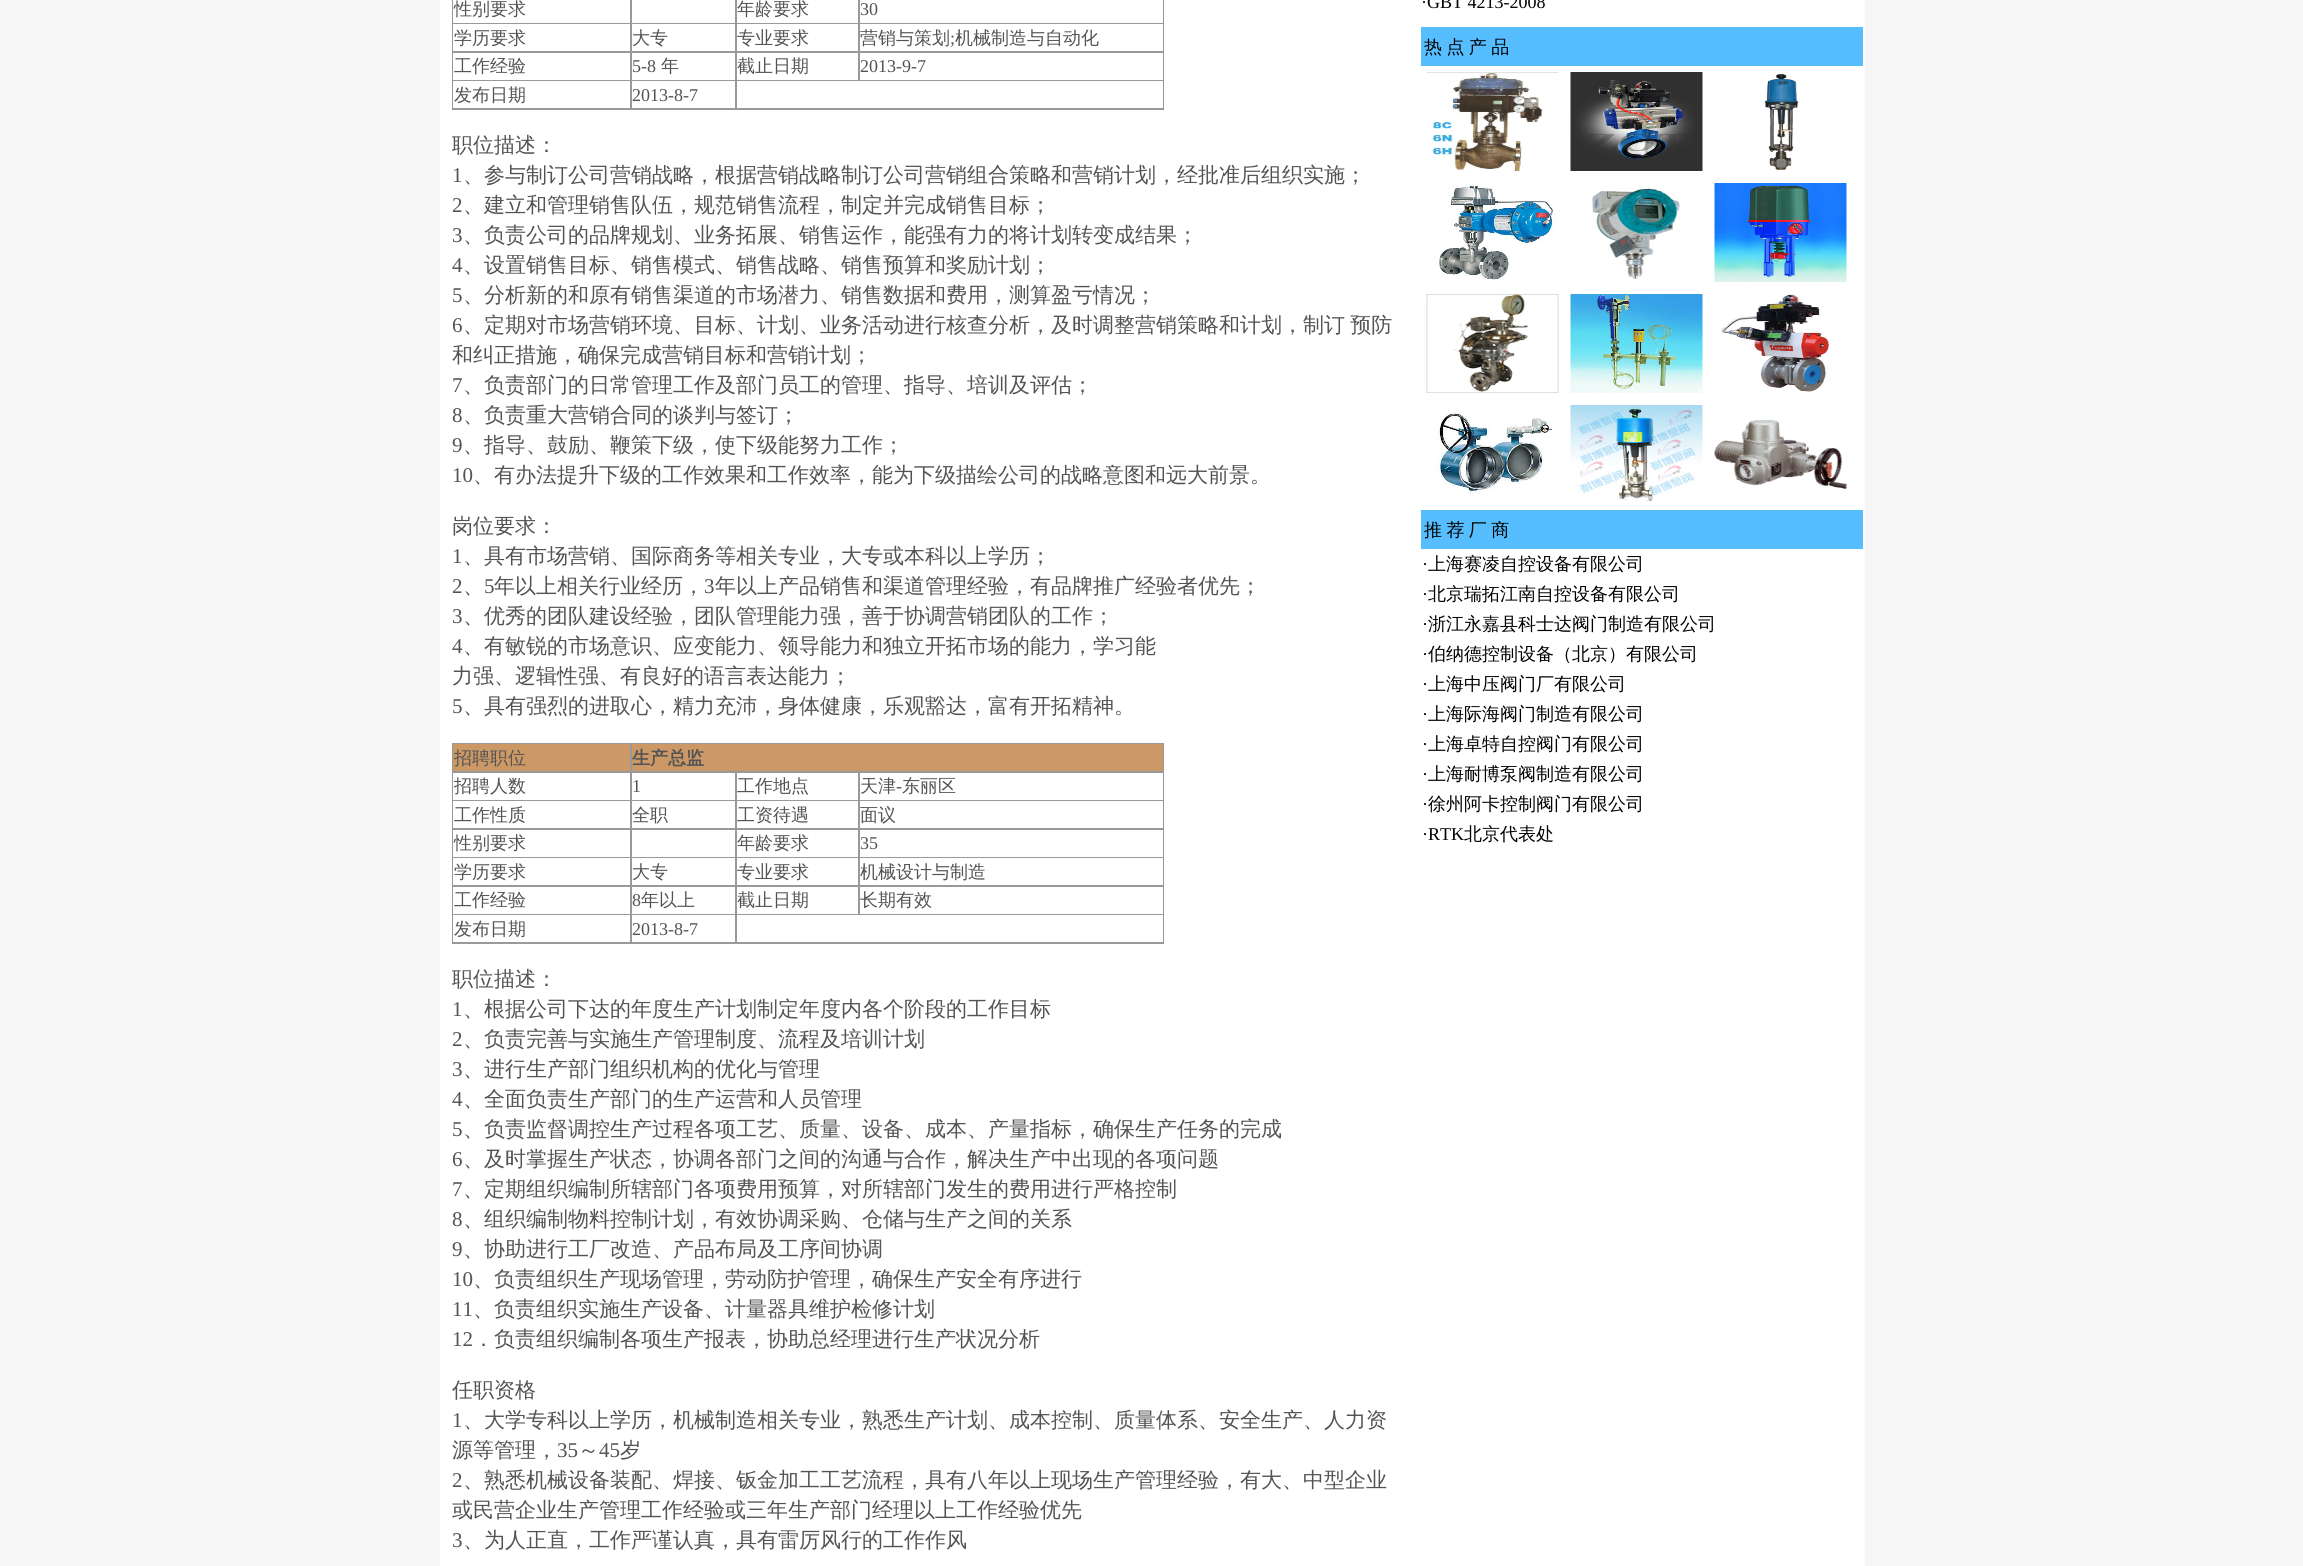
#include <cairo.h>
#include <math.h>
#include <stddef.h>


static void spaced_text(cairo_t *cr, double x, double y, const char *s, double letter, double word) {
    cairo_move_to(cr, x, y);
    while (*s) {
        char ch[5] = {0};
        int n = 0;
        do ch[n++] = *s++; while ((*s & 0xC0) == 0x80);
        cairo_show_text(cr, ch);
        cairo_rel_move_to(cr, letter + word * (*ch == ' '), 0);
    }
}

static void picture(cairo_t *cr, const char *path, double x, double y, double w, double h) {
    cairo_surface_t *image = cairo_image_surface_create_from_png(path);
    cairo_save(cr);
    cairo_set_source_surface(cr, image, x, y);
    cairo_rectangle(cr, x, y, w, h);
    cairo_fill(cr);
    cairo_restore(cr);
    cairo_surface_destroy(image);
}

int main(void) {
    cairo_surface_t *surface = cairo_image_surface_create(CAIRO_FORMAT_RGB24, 2303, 1566);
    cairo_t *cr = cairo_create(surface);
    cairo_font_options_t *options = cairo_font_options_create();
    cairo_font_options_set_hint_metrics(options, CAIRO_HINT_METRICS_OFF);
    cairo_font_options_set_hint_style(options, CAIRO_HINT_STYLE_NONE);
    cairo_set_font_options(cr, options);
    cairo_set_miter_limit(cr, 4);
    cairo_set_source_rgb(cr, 0.961, 0.961, 0.961);
    cairo_paint(cr);
    cairo_set_source_rgb(cr, 1, 1, 1);
    cairo_rectangle(cr, 440, 0, 1425, 1566);
    cairo_fill(cr);
    cairo_set_source_rgb(cr, 0.6, 0.6, 0.6);
    cairo_rectangle(cr, 452, 0, 712, 110);
    cairo_fill(cr);
    cairo_set_source_rgb(cr, 1, 1, 1);
    cairo_rectangle(cr, 453, 0, 177, 23);
    cairo_fill(cr);
    cairo_select_font_face(cr, "WenQuanYi Zen Hei Medium", CAIRO_FONT_SLANT_NORMAL, CAIRO_FONT_WEIGHT_NORMAL);
    cairo_set_font_size(cr, 18);
    cairo_set_source_rgb(cr, 0.325, 0.325, 0.325);
    cairo_move_to(cr, 454, 15);
    cairo_show_text(cr, "性别要求");
    cairo_set_source_rgb(cr, 1, 1, 1);
    cairo_rectangle(cr, 632, 0, 103, 23);
    cairo_fill(cr);
    cairo_rectangle(cr, 737, 0, 121, 23);
    cairo_fill(cr);
    cairo_set_source_rgb(cr, 0.325, 0.325, 0.325);
    cairo_move_to(cr, 737, 15);
    cairo_show_text(cr, "年龄要求");
    cairo_set_source_rgb(cr, 1, 1, 1);
    cairo_rectangle(cr, 860, 0, 303, 23);
    cairo_fill(cr);
    cairo_select_font_face(cr, "Liberation Serif", CAIRO_FONT_SLANT_NORMAL, CAIRO_FONT_WEIGHT_NORMAL);
    cairo_set_source_rgb(cr, 0.325, 0.325, 0.325);
    cairo_move_to(cr, 860, 15);
    cairo_show_text(cr, "30");
    cairo_set_source_rgb(cr, 1, 1, 1);
    cairo_rectangle(cr, 453, 24, 177, 27);
    cairo_fill(cr);
    cairo_select_font_face(cr, "WenQuanYi Zen Hei Medium", CAIRO_FONT_SLANT_NORMAL, CAIRO_FONT_WEIGHT_NORMAL);
    cairo_set_source_rgb(cr, 0.325, 0.325, 0.325);
    cairo_move_to(cr, 454, 44);
    cairo_show_text(cr, "学历要求");
    cairo_set_source_rgb(cr, 1, 1, 1);
    cairo_rectangle(cr, 632, 24, 103, 27);
    cairo_fill(cr);
    cairo_set_source_rgb(cr, 0.325, 0.325, 0.325);
    cairo_move_to(cr, 632, 44);
    cairo_show_text(cr, "大专");
    cairo_set_source_rgb(cr, 1, 1, 1);
    cairo_rectangle(cr, 737, 24, 121, 27);
    cairo_fill(cr);
    cairo_set_source_rgb(cr, 0.325, 0.325, 0.325);
    cairo_move_to(cr, 737, 44);
    cairo_show_text(cr, "专业要求");
    cairo_set_source_rgb(cr, 1, 1, 1);
    cairo_rectangle(cr, 860, 24, 303, 27);
    cairo_fill(cr);
    cairo_set_source_rgb(cr, 0.325, 0.325, 0.325);
    cairo_move_to(cr, 860, 44);
    cairo_show_text(cr, "营销与策划");
    cairo_select_font_face(cr, "Liberation Serif", CAIRO_FONT_SLANT_NORMAL, CAIRO_FONT_WEIGHT_NORMAL);
    cairo_move_to(cr, 950, 44);
    cairo_show_text(cr, ";");
    cairo_select_font_face(cr, "WenQuanYi Zen Hei Medium", CAIRO_FONT_SLANT_NORMAL, CAIRO_FONT_WEIGHT_NORMAL);
    cairo_move_to(cr, 955, 44);
    cairo_show_text(cr, "机械制造与自动化");
    cairo_set_source_rgb(cr, 1, 1, 1);
    cairo_rectangle(cr, 453, 53, 177, 27);
    cairo_fill(cr);
    cairo_set_source_rgb(cr, 0.325, 0.325, 0.325);
    cairo_move_to(cr, 454, 72);
    cairo_show_text(cr, "工作经验");
    cairo_set_source_rgb(cr, 1, 1, 1);
    cairo_rectangle(cr, 632, 53, 103, 27);
    cairo_fill(cr);
    cairo_select_font_face(cr, "Liberation Serif", CAIRO_FONT_SLANT_NORMAL, CAIRO_FONT_WEIGHT_NORMAL);
    cairo_set_source_rgb(cr, 0.325, 0.325, 0.325);
    cairo_move_to(cr, 632, 72);
    cairo_show_text(cr, "5-8");
    cairo_select_font_face(cr, "WenQuanYi Zen Hei Medium", CAIRO_FONT_SLANT_NORMAL, CAIRO_FONT_WEIGHT_NORMAL);
    cairo_move_to(cr, 661, 72);
    cairo_show_text(cr, "年");
    cairo_set_source_rgb(cr, 1, 1, 1);
    cairo_rectangle(cr, 737, 53, 121, 27);
    cairo_fill(cr);
    cairo_set_source_rgb(cr, 0.325, 0.325, 0.325);
    cairo_move_to(cr, 737, 72);
    cairo_show_text(cr, "截止日期");
    cairo_set_source_rgb(cr, 1, 1, 1);
    cairo_rectangle(cr, 860, 53, 303, 27);
    cairo_fill(cr);
    cairo_select_font_face(cr, "Liberation Serif", CAIRO_FONT_SLANT_NORMAL, CAIRO_FONT_WEIGHT_NORMAL);
    cairo_set_source_rgb(cr, 0.325, 0.325, 0.325);
    cairo_move_to(cr, 860, 72);
    cairo_show_text(cr, "2013-9-7");
    cairo_set_source_rgb(cr, 1, 1, 1);
    cairo_rectangle(cr, 453, 81, 177, 27);
    cairo_fill(cr);
    cairo_select_font_face(cr, "WenQuanYi Zen Hei Medium", CAIRO_FONT_SLANT_NORMAL, CAIRO_FONT_WEIGHT_NORMAL);
    cairo_set_source_rgb(cr, 0.325, 0.325, 0.325);
    cairo_move_to(cr, 454, 101);
    cairo_show_text(cr, "发布日期");
    cairo_set_source_rgb(cr, 1, 1, 1);
    cairo_rectangle(cr, 632, 81, 103, 27);
    cairo_fill(cr);
    cairo_select_font_face(cr, "Liberation Serif", CAIRO_FONT_SLANT_NORMAL, CAIRO_FONT_WEIGHT_NORMAL);
    cairo_set_source_rgb(cr, 0.325, 0.325, 0.325);
    cairo_move_to(cr, 632, 101);
    cairo_show_text(cr, "2013-8-7");
    cairo_set_source_rgb(cr, 1, 1, 1);
    cairo_rectangle(cr, 737, 81, 426, 27);
    cairo_fill(cr);
    cairo_select_font_face(cr, "WenQuanYi Zen Hei Medium", CAIRO_FONT_SLANT_NORMAL, CAIRO_FONT_WEIGHT_NORMAL);
    cairo_set_font_size(cr, 21);
    cairo_set_source_rgb(cr, 0.325, 0.325, 0.325);
    cairo_move_to(cr, 452, 152);
    cairo_show_text(cr, "职位描述：");
    cairo_select_font_face(cr, "Liberation Serif", CAIRO_FONT_SLANT_NORMAL, CAIRO_FONT_WEIGHT_NORMAL);
    cairo_move_to(cr, 452, 182);
    cairo_show_text(cr, "1");
    cairo_select_font_face(cr, "WenQuanYi Zen Hei Medium", CAIRO_FONT_SLANT_NORMAL, CAIRO_FONT_WEIGHT_NORMAL);
    cairo_move_to(cr, 463, 182);
    cairo_show_text(cr, "、参与制订公司营销战略，根据营销战略制订公司营销组合策略和营销计划，经批准后组织实施；");
    cairo_select_font_face(cr, "Liberation Serif", CAIRO_FONT_SLANT_NORMAL, CAIRO_FONT_WEIGHT_NORMAL);
    cairo_move_to(cr, 452, 212);
    cairo_show_text(cr, "2");
    cairo_select_font_face(cr, "WenQuanYi Zen Hei Medium", CAIRO_FONT_SLANT_NORMAL, CAIRO_FONT_WEIGHT_NORMAL);
    cairo_move_to(cr, 463, 212);
    cairo_show_text(cr, "、建立和管理销售队伍，规范销售流程，制定并完成销售目标；");
    cairo_select_font_face(cr, "Liberation Serif", CAIRO_FONT_SLANT_NORMAL, CAIRO_FONT_WEIGHT_NORMAL);
    cairo_move_to(cr, 452, 242);
    cairo_show_text(cr, "3");
    cairo_select_font_face(cr, "WenQuanYi Zen Hei Medium", CAIRO_FONT_SLANT_NORMAL, CAIRO_FONT_WEIGHT_NORMAL);
    cairo_move_to(cr, 463, 242);
    cairo_show_text(cr, "、负责公司的品牌规划、业务拓展、销售运作，能强有力的将计划转变成结果；");
    cairo_select_font_face(cr, "Liberation Serif", CAIRO_FONT_SLANT_NORMAL, CAIRO_FONT_WEIGHT_NORMAL);
    cairo_move_to(cr, 452, 272);
    cairo_show_text(cr, "4");
    cairo_select_font_face(cr, "WenQuanYi Zen Hei Medium", CAIRO_FONT_SLANT_NORMAL, CAIRO_FONT_WEIGHT_NORMAL);
    cairo_move_to(cr, 463, 272);
    cairo_show_text(cr, "、设置销售目标、销售模式、销售战略、销售预算和奖励计划；");
    cairo_select_font_face(cr, "Liberation Serif", CAIRO_FONT_SLANT_NORMAL, CAIRO_FONT_WEIGHT_NORMAL);
    cairo_move_to(cr, 452, 302);
    cairo_show_text(cr, "5");
    cairo_select_font_face(cr, "WenQuanYi Zen Hei Medium", CAIRO_FONT_SLANT_NORMAL, CAIRO_FONT_WEIGHT_NORMAL);
    cairo_move_to(cr, 463, 302);
    cairo_show_text(cr, "、分析新的和原有销售渠道的市场潜力、销售数据和费用，测算盈亏情况；");
    cairo_select_font_face(cr, "Liberation Serif", CAIRO_FONT_SLANT_NORMAL, CAIRO_FONT_WEIGHT_NORMAL);
    cairo_move_to(cr, 452, 332);
    cairo_show_text(cr, "6");
    cairo_select_font_face(cr, "WenQuanYi Zen Hei Medium", CAIRO_FONT_SLANT_NORMAL, CAIRO_FONT_WEIGHT_NORMAL);
    spaced_text(cr, 463, 332, "、定期对市场营销环境、目标、计划、业务活动进行核查分析，及时调整营销策略和计划，制订 预防", 0, -1);
    cairo_move_to(cr, 452, 362);
    cairo_show_text(cr, "和纠正措施，确保完成营销目标和营销计划；");
    cairo_select_font_face(cr, "Liberation Serif", CAIRO_FONT_SLANT_NORMAL, CAIRO_FONT_WEIGHT_NORMAL);
    cairo_move_to(cr, 452, 392);
    cairo_show_text(cr, "7");
    cairo_select_font_face(cr, "WenQuanYi Zen Hei Medium", CAIRO_FONT_SLANT_NORMAL, CAIRO_FONT_WEIGHT_NORMAL);
    cairo_move_to(cr, 463, 392);
    cairo_show_text(cr, "、负责部门的日常管理工作及部门员工的管理、指导、培训及评估；");
    cairo_select_font_face(cr, "Liberation Serif", CAIRO_FONT_SLANT_NORMAL, CAIRO_FONT_WEIGHT_NORMAL);
    cairo_move_to(cr, 452, 422);
    cairo_show_text(cr, "8");
    cairo_select_font_face(cr, "WenQuanYi Zen Hei Medium", CAIRO_FONT_SLANT_NORMAL, CAIRO_FONT_WEIGHT_NORMAL);
    cairo_move_to(cr, 463, 422);
    cairo_show_text(cr, "、负责重大营销合同的谈判与签订；");
    cairo_select_font_face(cr, "Liberation Serif", CAIRO_FONT_SLANT_NORMAL, CAIRO_FONT_WEIGHT_NORMAL);
    cairo_move_to(cr, 452, 452);
    cairo_show_text(cr, "9");
    cairo_select_font_face(cr, "WenQuanYi Zen Hei Medium", CAIRO_FONT_SLANT_NORMAL, CAIRO_FONT_WEIGHT_NORMAL);
    cairo_move_to(cr, 463, 452);
    cairo_show_text(cr, "、指导、鼓励、鞭策下级，使下级能努力工作；");
    cairo_select_font_face(cr, "Liberation Serif", CAIRO_FONT_SLANT_NORMAL, CAIRO_FONT_WEIGHT_NORMAL);
    cairo_move_to(cr, 452, 482);
    cairo_show_text(cr, "10");
    cairo_select_font_face(cr, "WenQuanYi Zen Hei Medium", CAIRO_FONT_SLANT_NORMAL, CAIRO_FONT_WEIGHT_NORMAL);
    cairo_move_to(cr, 473, 482);
    cairo_show_text(cr, "、有办法提升下级的工作效果和工作效率，能为下级描绘公司的战略意图和远大前景。");
    cairo_move_to(cr, 452, 533);
    cairo_show_text(cr, "岗位要求：");
    cairo_select_font_face(cr, "Liberation Serif", CAIRO_FONT_SLANT_NORMAL, CAIRO_FONT_WEIGHT_NORMAL);
    cairo_move_to(cr, 452, 563);
    cairo_show_text(cr, "1");
    cairo_select_font_face(cr, "WenQuanYi Zen Hei Medium", CAIRO_FONT_SLANT_NORMAL, CAIRO_FONT_WEIGHT_NORMAL);
    cairo_move_to(cr, 463, 563);
    cairo_show_text(cr, "、具有市场营销、国际商务等相关专业，大专或本科以上学历；");
    cairo_select_font_face(cr, "Liberation Serif", CAIRO_FONT_SLANT_NORMAL, CAIRO_FONT_WEIGHT_NORMAL);
    cairo_move_to(cr, 452, 593);
    cairo_show_text(cr, "2");
    cairo_select_font_face(cr, "WenQuanYi Zen Hei Medium", CAIRO_FONT_SLANT_NORMAL, CAIRO_FONT_WEIGHT_NORMAL);
    cairo_move_to(cr, 463, 593);
    cairo_show_text(cr, "、");
    cairo_select_font_face(cr, "Liberation Serif", CAIRO_FONT_SLANT_NORMAL, CAIRO_FONT_WEIGHT_NORMAL);
    cairo_move_to(cr, 484, 593);
    cairo_show_text(cr, "5");
    cairo_select_font_face(cr, "WenQuanYi Zen Hei Medium", CAIRO_FONT_SLANT_NORMAL, CAIRO_FONT_WEIGHT_NORMAL);
    cairo_move_to(cr, 494, 593);
    cairo_show_text(cr, "年以上相关行业经历，");
    cairo_select_font_face(cr, "Liberation Serif", CAIRO_FONT_SLANT_NORMAL, CAIRO_FONT_WEIGHT_NORMAL);
    cairo_move_to(cr, 704, 593);
    cairo_show_text(cr, "3");
    cairo_select_font_face(cr, "WenQuanYi Zen Hei Medium", CAIRO_FONT_SLANT_NORMAL, CAIRO_FONT_WEIGHT_NORMAL);
    cairo_move_to(cr, 715, 593);
    cairo_show_text(cr, "年以上产品销售和渠道管理经验，有品牌推广经验者优先；");
    cairo_select_font_face(cr, "Liberation Serif", CAIRO_FONT_SLANT_NORMAL, CAIRO_FONT_WEIGHT_NORMAL);
    cairo_move_to(cr, 452, 623);
    cairo_show_text(cr, "3");
    cairo_select_font_face(cr, "WenQuanYi Zen Hei Medium", CAIRO_FONT_SLANT_NORMAL, CAIRO_FONT_WEIGHT_NORMAL);
    cairo_move_to(cr, 463, 623);
    cairo_show_text(cr, "、优秀的团队建设经验，团队管理能力强，善于协调营销团队的工作；");
    cairo_select_font_face(cr, "Liberation Serif", CAIRO_FONT_SLANT_NORMAL, CAIRO_FONT_WEIGHT_NORMAL);
    cairo_move_to(cr, 452, 653);
    cairo_show_text(cr, "4");
    cairo_select_font_face(cr, "WenQuanYi Zen Hei Medium", CAIRO_FONT_SLANT_NORMAL, CAIRO_FONT_WEIGHT_NORMAL);
    cairo_move_to(cr, 463, 653);
    cairo_show_text(cr, "、有敏锐的市场意识、应变能力、领导能力和独立开拓市场的能力，学习能");
    cairo_move_to(cr, 452, 683);
    cairo_show_text(cr, "力强、逻辑性强、有良好的语言表达能力；");
    cairo_select_font_face(cr, "Liberation Serif", CAIRO_FONT_SLANT_NORMAL, CAIRO_FONT_WEIGHT_NORMAL);
    cairo_move_to(cr, 452, 713);
    cairo_show_text(cr, "5");
    cairo_select_font_face(cr, "WenQuanYi Zen Hei Medium", CAIRO_FONT_SLANT_NORMAL, CAIRO_FONT_WEIGHT_NORMAL);
    cairo_move_to(cr, 463, 713);
    cairo_show_text(cr, "、具有强烈的进取心，精力充沛，身体健康，乐观豁达，富有开拓精神。");
    cairo_set_source_rgb(cr, 0.6, 0.6, 0.6);
    cairo_rectangle(cr, 452, 743, 712, 201);
    cairo_fill(cr);
    cairo_set_source_rgb(cr, 0.8, 0.6, 0.4);
    cairo_rectangle(cr, 453, 744, 177, 27);
    cairo_fill(cr);
    cairo_set_font_size(cr, 18);
    cairo_set_source_rgb(cr, 0.325, 0.325, 0.325);
    cairo_move_to(cr, 454, 764);
    cairo_show_text(cr, "招聘职位");
    cairo_set_source_rgb(cr, 0.8, 0.6, 0.4);
    cairo_rectangle(cr, 632, 744, 531, 27);
    cairo_fill(cr);
    cairo_select_font_face(cr, "WenQuanYi Zen Hei", CAIRO_FONT_SLANT_NORMAL, CAIRO_FONT_WEIGHT_BOLD);
    cairo_set_source_rgb(cr, 0.325, 0.325, 0.325);
    cairo_move_to(cr, 632, 764);
    cairo_show_text(cr, "生产总监");
    cairo_set_source_rgb(cr, 1, 1, 1);
    cairo_rectangle(cr, 453, 773, 177, 27);
    cairo_fill(cr);
    cairo_select_font_face(cr, "WenQuanYi Zen Hei Medium", CAIRO_FONT_SLANT_NORMAL, CAIRO_FONT_WEIGHT_NORMAL);
    cairo_set_source_rgb(cr, 0.325, 0.325, 0.325);
    cairo_move_to(cr, 454, 792);
    cairo_show_text(cr, "招聘人数");
    cairo_set_source_rgb(cr, 1, 1, 1);
    cairo_rectangle(cr, 632, 773, 103, 27);
    cairo_fill(cr);
    cairo_select_font_face(cr, "Liberation Serif", CAIRO_FONT_SLANT_NORMAL, CAIRO_FONT_WEIGHT_NORMAL);
    cairo_set_source_rgb(cr, 0.325, 0.325, 0.325);
    cairo_move_to(cr, 632, 792);
    cairo_show_text(cr, "1");
    cairo_set_source_rgb(cr, 1, 1, 1);
    cairo_rectangle(cr, 737, 773, 121, 27);
    cairo_fill(cr);
    cairo_select_font_face(cr, "WenQuanYi Zen Hei Medium", CAIRO_FONT_SLANT_NORMAL, CAIRO_FONT_WEIGHT_NORMAL);
    cairo_set_source_rgb(cr, 0.325, 0.325, 0.325);
    cairo_move_to(cr, 737, 792);
    cairo_show_text(cr, "工作地点");
    cairo_set_source_rgb(cr, 1, 1, 1);
    cairo_rectangle(cr, 860, 773, 303, 27);
    cairo_fill(cr);
    cairo_set_source_rgb(cr, 0.325, 0.325, 0.325);
    cairo_move_to(cr, 860, 792);
    cairo_show_text(cr, "天津");
    cairo_select_font_face(cr, "Liberation Serif", CAIRO_FONT_SLANT_NORMAL, CAIRO_FONT_WEIGHT_NORMAL);
    cairo_move_to(cr, 896, 792);
    cairo_show_text(cr, "-");
    cairo_select_font_face(cr, "WenQuanYi Zen Hei Medium", CAIRO_FONT_SLANT_NORMAL, CAIRO_FONT_WEIGHT_NORMAL);
    cairo_move_to(cr, 902, 792);
    cairo_show_text(cr, "东丽区");
    cairo_set_source_rgb(cr, 1, 1, 1);
    cairo_rectangle(cr, 453, 801, 177, 27);
    cairo_fill(cr);
    cairo_set_source_rgb(cr, 0.325, 0.325, 0.325);
    cairo_move_to(cr, 454, 821);
    cairo_show_text(cr, "工作性质");
    cairo_set_source_rgb(cr, 1, 1, 1);
    cairo_rectangle(cr, 632, 801, 103, 27);
    cairo_fill(cr);
    cairo_set_source_rgb(cr, 0.325, 0.325, 0.325);
    cairo_move_to(cr, 632, 821);
    cairo_show_text(cr, "全职");
    cairo_set_source_rgb(cr, 1, 1, 1);
    cairo_rectangle(cr, 737, 801, 121, 27);
    cairo_fill(cr);
    cairo_set_source_rgb(cr, 0.325, 0.325, 0.325);
    cairo_move_to(cr, 737, 821);
    cairo_show_text(cr, "工资待遇");
    cairo_set_source_rgb(cr, 1, 1, 1);
    cairo_rectangle(cr, 860, 801, 303, 27);
    cairo_fill(cr);
    cairo_set_source_rgb(cr, 0.325, 0.325, 0.325);
    cairo_move_to(cr, 860, 821);
    cairo_show_text(cr, "面议");
    cairo_set_source_rgb(cr, 1, 1, 1);
    cairo_rectangle(cr, 453, 830, 177, 27);
    cairo_fill(cr);
    cairo_set_source_rgb(cr, 0.325, 0.325, 0.325);
    cairo_move_to(cr, 454, 849);
    cairo_show_text(cr, "性别要求");
    cairo_set_source_rgb(cr, 1, 1, 1);
    cairo_rectangle(cr, 632, 830, 103, 27);
    cairo_fill(cr);
    cairo_rectangle(cr, 737, 830, 121, 27);
    cairo_fill(cr);
    cairo_set_source_rgb(cr, 0.325, 0.325, 0.325);
    cairo_move_to(cr, 737, 849);
    cairo_show_text(cr, "年龄要求");
    cairo_set_source_rgb(cr, 1, 1, 1);
    cairo_rectangle(cr, 860, 830, 303, 27);
    cairo_fill(cr);
    cairo_select_font_face(cr, "Liberation Serif", CAIRO_FONT_SLANT_NORMAL, CAIRO_FONT_WEIGHT_NORMAL);
    cairo_set_source_rgb(cr, 0.325, 0.325, 0.325);
    cairo_move_to(cr, 860, 849);
    cairo_show_text(cr, "35");
    cairo_set_source_rgb(cr, 1, 1, 1);
    cairo_rectangle(cr, 453, 858, 177, 27);
    cairo_fill(cr);
    cairo_select_font_face(cr, "WenQuanYi Zen Hei Medium", CAIRO_FONT_SLANT_NORMAL, CAIRO_FONT_WEIGHT_NORMAL);
    cairo_set_source_rgb(cr, 0.325, 0.325, 0.325);
    cairo_move_to(cr, 454, 878);
    cairo_show_text(cr, "学历要求");
    cairo_set_source_rgb(cr, 1, 1, 1);
    cairo_rectangle(cr, 632, 858, 103, 27);
    cairo_fill(cr);
    cairo_set_source_rgb(cr, 0.325, 0.325, 0.325);
    cairo_move_to(cr, 632, 878);
    cairo_show_text(cr, "大专");
    cairo_set_source_rgb(cr, 1, 1, 1);
    cairo_rectangle(cr, 737, 858, 121, 27);
    cairo_fill(cr);
    cairo_set_source_rgb(cr, 0.325, 0.325, 0.325);
    cairo_move_to(cr, 737, 878);
    cairo_show_text(cr, "专业要求");
    cairo_set_source_rgb(cr, 1, 1, 1);
    cairo_rectangle(cr, 860, 858, 303, 27);
    cairo_fill(cr);
    cairo_set_source_rgb(cr, 0.325, 0.325, 0.325);
    cairo_move_to(cr, 860, 878);
    cairo_show_text(cr, "机械设计与制造");
    cairo_set_source_rgb(cr, 1, 1, 1);
    cairo_rectangle(cr, 453, 887, 177, 27);
    cairo_fill(cr);
    cairo_set_source_rgb(cr, 0.325, 0.325, 0.325);
    cairo_move_to(cr, 454, 906);
    cairo_show_text(cr, "工作经验");
    cairo_set_source_rgb(cr, 1, 1, 1);
    cairo_rectangle(cr, 632, 887, 103, 27);
    cairo_fill(cr);
    cairo_select_font_face(cr, "Liberation Serif", CAIRO_FONT_SLANT_NORMAL, CAIRO_FONT_WEIGHT_NORMAL);
    cairo_set_source_rgb(cr, 0.325, 0.325, 0.325);
    cairo_move_to(cr, 632, 906);
    cairo_show_text(cr, "8");
    cairo_select_font_face(cr, "WenQuanYi Zen Hei Medium", CAIRO_FONT_SLANT_NORMAL, CAIRO_FONT_WEIGHT_NORMAL);
    cairo_move_to(cr, 641, 906);
    cairo_show_text(cr, "年以上");
    cairo_set_source_rgb(cr, 1, 1, 1);
    cairo_rectangle(cr, 737, 887, 121, 27);
    cairo_fill(cr);
    cairo_set_source_rgb(cr, 0.325, 0.325, 0.325);
    cairo_move_to(cr, 737, 906);
    cairo_show_text(cr, "截止日期");
    cairo_set_source_rgb(cr, 1, 1, 1);
    cairo_rectangle(cr, 860, 887, 303, 27);
    cairo_fill(cr);
    cairo_set_source_rgb(cr, 0.325, 0.325, 0.325);
    cairo_move_to(cr, 860, 906);
    cairo_show_text(cr, "长期有效");
    cairo_set_source_rgb(cr, 1, 1, 1);
    cairo_rectangle(cr, 453, 915, 177, 27);
    cairo_fill(cr);
    cairo_set_source_rgb(cr, 0.325, 0.325, 0.325);
    cairo_move_to(cr, 454, 935);
    cairo_show_text(cr, "发布日期");
    cairo_set_source_rgb(cr, 1, 1, 1);
    cairo_rectangle(cr, 632, 915, 103, 27);
    cairo_fill(cr);
    cairo_select_font_face(cr, "Liberation Serif", CAIRO_FONT_SLANT_NORMAL, CAIRO_FONT_WEIGHT_NORMAL);
    cairo_set_source_rgb(cr, 0.325, 0.325, 0.325);
    cairo_move_to(cr, 632, 935);
    cairo_show_text(cr, "2013-8-7");
    cairo_set_source_rgb(cr, 1, 1, 1);
    cairo_rectangle(cr, 737, 915, 426, 27);
    cairo_fill(cr);
    cairo_select_font_face(cr, "WenQuanYi Zen Hei Medium", CAIRO_FONT_SLANT_NORMAL, CAIRO_FONT_WEIGHT_NORMAL);
    cairo_set_font_size(cr, 21);
    cairo_set_source_rgb(cr, 0.325, 0.325, 0.325);
    cairo_move_to(cr, 452, 986);
    cairo_show_text(cr, "职位描述：");
    cairo_select_font_face(cr, "Liberation Serif", CAIRO_FONT_SLANT_NORMAL, CAIRO_FONT_WEIGHT_NORMAL);
    cairo_move_to(cr, 452, 1016);
    cairo_show_text(cr, "1");
    cairo_select_font_face(cr, "WenQuanYi Zen Hei Medium", CAIRO_FONT_SLANT_NORMAL, CAIRO_FONT_WEIGHT_NORMAL);
    cairo_move_to(cr, 463, 1016);
    cairo_show_text(cr, "、根据公司下达的年度生产计划制定年度内各个阶段的工作目标");
    cairo_select_font_face(cr, "Liberation Serif", CAIRO_FONT_SLANT_NORMAL, CAIRO_FONT_WEIGHT_NORMAL);
    cairo_move_to(cr, 452, 1046);
    cairo_show_text(cr, "2");
    cairo_select_font_face(cr, "WenQuanYi Zen Hei Medium", CAIRO_FONT_SLANT_NORMAL, CAIRO_FONT_WEIGHT_NORMAL);
    cairo_move_to(cr, 463, 1046);
    cairo_show_text(cr, "、负责完善与实施生产管理制度、流程及培训计划");
    cairo_select_font_face(cr, "Liberation Serif", CAIRO_FONT_SLANT_NORMAL, CAIRO_FONT_WEIGHT_NORMAL);
    cairo_move_to(cr, 452, 1076);
    cairo_show_text(cr, "3");
    cairo_select_font_face(cr, "WenQuanYi Zen Hei Medium", CAIRO_FONT_SLANT_NORMAL, CAIRO_FONT_WEIGHT_NORMAL);
    cairo_move_to(cr, 463, 1076);
    cairo_show_text(cr, "、进行生产部门组织机构的优化与管理");
    cairo_select_font_face(cr, "Liberation Serif", CAIRO_FONT_SLANT_NORMAL, CAIRO_FONT_WEIGHT_NORMAL);
    cairo_move_to(cr, 452, 1106);
    cairo_show_text(cr, "4");
    cairo_select_font_face(cr, "WenQuanYi Zen Hei Medium", CAIRO_FONT_SLANT_NORMAL, CAIRO_FONT_WEIGHT_NORMAL);
    cairo_move_to(cr, 463, 1106);
    cairo_show_text(cr, "、全面负责生产部门的生产运营和人员管理");
    cairo_select_font_face(cr, "Liberation Serif", CAIRO_FONT_SLANT_NORMAL, CAIRO_FONT_WEIGHT_NORMAL);
    cairo_move_to(cr, 452, 1136);
    cairo_show_text(cr, "5");
    cairo_select_font_face(cr, "WenQuanYi Zen Hei Medium", CAIRO_FONT_SLANT_NORMAL, CAIRO_FONT_WEIGHT_NORMAL);
    cairo_move_to(cr, 463, 1136);
    cairo_show_text(cr, "、负责监督调控生产过程各项工艺、质量、设备、成本、产量指标，确保生产任务的完成");
    cairo_select_font_face(cr, "Liberation Serif", CAIRO_FONT_SLANT_NORMAL, CAIRO_FONT_WEIGHT_NORMAL);
    cairo_move_to(cr, 452, 1166);
    cairo_show_text(cr, "6");
    cairo_select_font_face(cr, "WenQuanYi Zen Hei Medium", CAIRO_FONT_SLANT_NORMAL, CAIRO_FONT_WEIGHT_NORMAL);
    cairo_move_to(cr, 463, 1166);
    cairo_show_text(cr, "、及时掌握生产状态，协调各部门之间的沟通与合作，解决生产中出现的各项问题");
    cairo_select_font_face(cr, "Liberation Serif", CAIRO_FONT_SLANT_NORMAL, CAIRO_FONT_WEIGHT_NORMAL);
    cairo_move_to(cr, 452, 1196);
    cairo_show_text(cr, "7");
    cairo_select_font_face(cr, "WenQuanYi Zen Hei Medium", CAIRO_FONT_SLANT_NORMAL, CAIRO_FONT_WEIGHT_NORMAL);
    cairo_move_to(cr, 463, 1196);
    cairo_show_text(cr, "、定期组织编制所辖部门各项费用预算，对所辖部门发生的费用进行严格控制");
    cairo_select_font_face(cr, "Liberation Serif", CAIRO_FONT_SLANT_NORMAL, CAIRO_FONT_WEIGHT_NORMAL);
    cairo_move_to(cr, 452, 1226);
    cairo_show_text(cr, "8");
    cairo_select_font_face(cr, "WenQuanYi Zen Hei Medium", CAIRO_FONT_SLANT_NORMAL, CAIRO_FONT_WEIGHT_NORMAL);
    cairo_move_to(cr, 463, 1226);
    cairo_show_text(cr, "、组织编制物料控制计划，有效协调采购、仓储与生产之间的关系");
    cairo_select_font_face(cr, "Liberation Serif", CAIRO_FONT_SLANT_NORMAL, CAIRO_FONT_WEIGHT_NORMAL);
    cairo_move_to(cr, 452, 1256);
    cairo_show_text(cr, "9");
    cairo_select_font_face(cr, "WenQuanYi Zen Hei Medium", CAIRO_FONT_SLANT_NORMAL, CAIRO_FONT_WEIGHT_NORMAL);
    cairo_move_to(cr, 463, 1256);
    cairo_show_text(cr, "、协助进行工厂改造、产品布局及工序间协调");
    cairo_select_font_face(cr, "Liberation Serif", CAIRO_FONT_SLANT_NORMAL, CAIRO_FONT_WEIGHT_NORMAL);
    cairo_move_to(cr, 452, 1286);
    cairo_show_text(cr, "10");
    cairo_select_font_face(cr, "WenQuanYi Zen Hei Medium", CAIRO_FONT_SLANT_NORMAL, CAIRO_FONT_WEIGHT_NORMAL);
    cairo_move_to(cr, 473, 1286);
    cairo_show_text(cr, "、负责组织生产现场管理，劳动防护管理，确保生产安全有序进行");
    cairo_select_font_face(cr, "Liberation Serif", CAIRO_FONT_SLANT_NORMAL, CAIRO_FONT_WEIGHT_NORMAL);
    cairo_move_to(cr, 452, 1316);
    cairo_show_text(cr, "11");
    cairo_select_font_face(cr, "WenQuanYi Zen Hei Medium", CAIRO_FONT_SLANT_NORMAL, CAIRO_FONT_WEIGHT_NORMAL);
    cairo_move_to(cr, 473, 1316);
    cairo_show_text(cr, "、负责组织实施生产设备、计量器具维护检修计划");
    cairo_select_font_face(cr, "Liberation Serif", CAIRO_FONT_SLANT_NORMAL, CAIRO_FONT_WEIGHT_NORMAL);
    cairo_move_to(cr, 452, 1346);
    cairo_show_text(cr, "12");
    cairo_select_font_face(cr, "WenQuanYi Zen Hei Medium", CAIRO_FONT_SLANT_NORMAL, CAIRO_FONT_WEIGHT_NORMAL);
    cairo_move_to(cr, 473, 1346);
    cairo_show_text(cr, "．负责组织编制各项生产报表，协助总经理进行生产状况分析");
    cairo_move_to(cr, 452, 1397);
    cairo_show_text(cr, "任职资格");
    cairo_select_font_face(cr, "Liberation Serif", CAIRO_FONT_SLANT_NORMAL, CAIRO_FONT_WEIGHT_NORMAL);
    cairo_move_to(cr, 452, 1427);
    cairo_show_text(cr, "1");
    cairo_select_font_face(cr, "WenQuanYi Zen Hei Medium", CAIRO_FONT_SLANT_NORMAL, CAIRO_FONT_WEIGHT_NORMAL);
    cairo_move_to(cr, 463, 1427);
    cairo_show_text(cr, "、大学专科以上学历，机械制造相关专业，熟悉生产计划、成本控制、质量体系、安全生产、人力资");
    cairo_move_to(cr, 452, 1457);
    cairo_show_text(cr, "源等管理，");
    cairo_select_font_face(cr, "Liberation Serif", CAIRO_FONT_SLANT_NORMAL, CAIRO_FONT_WEIGHT_NORMAL);
    cairo_move_to(cr, 557, 1457);
    cairo_show_text(cr, "35");
    cairo_select_font_face(cr, "WenQuanYi Zen Hei Medium", CAIRO_FONT_SLANT_NORMAL, CAIRO_FONT_WEIGHT_NORMAL);
    cairo_move_to(cr, 578, 1457);
    cairo_show_text(cr, "～");
    cairo_select_font_face(cr, "Liberation Serif", CAIRO_FONT_SLANT_NORMAL, CAIRO_FONT_WEIGHT_NORMAL);
    cairo_move_to(cr, 599, 1457);
    cairo_show_text(cr, "45");
    cairo_select_font_face(cr, "WenQuanYi Zen Hei Medium", CAIRO_FONT_SLANT_NORMAL, CAIRO_FONT_WEIGHT_NORMAL);
    cairo_move_to(cr, 620, 1457);
    cairo_show_text(cr, "岁");
    cairo_select_font_face(cr, "Liberation Serif", CAIRO_FONT_SLANT_NORMAL, CAIRO_FONT_WEIGHT_NORMAL);
    cairo_move_to(cr, 452, 1487);
    cairo_show_text(cr, "2");
    cairo_select_font_face(cr, "WenQuanYi Zen Hei Medium", CAIRO_FONT_SLANT_NORMAL, CAIRO_FONT_WEIGHT_NORMAL);
    cairo_move_to(cr, 463, 1487);
    cairo_show_text(cr, "、熟悉机械设备装配、焊接、钣金加工工艺流程，具有八年以上现场生产管理经验，有大、中型企业");
    cairo_move_to(cr, 452, 1517);
    cairo_show_text(cr, "或民营企业生产管理工作经验或三年生产部门经理以上工作经验优先");
    cairo_select_font_face(cr, "Liberation Serif", CAIRO_FONT_SLANT_NORMAL, CAIRO_FONT_WEIGHT_NORMAL);
    cairo_move_to(cr, 452, 1547);
    cairo_show_text(cr, "3");
    cairo_select_font_face(cr, "WenQuanYi Zen Hei Medium", CAIRO_FONT_SLANT_NORMAL, CAIRO_FONT_WEIGHT_NORMAL);
    cairo_move_to(cr, 463, 1547);
    cairo_show_text(cr, "、为人正直，工作严谨认真，具有雷厉风行的工作作风");
    cairo_select_font_face(cr, "Liberation Serif", CAIRO_FONT_SLANT_NORMAL, CAIRO_FONT_WEIGHT_NORMAL);
    cairo_set_font_size(cr, 18);
    cairo_set_source_rgb(cr, 0, 0, 0);
    cairo_move_to(cr, 1421, 8);
    cairo_show_text(cr, "·GBT 4213-2008");
    cairo_set_source_rgb(cr, 0.337, 0.741, 1);
    cairo_rectangle(cr, 1421, 27, 442, 39);
    cairo_fill(cr);
    cairo_select_font_face(cr, "WenQuanYi Zen Hei Medium", CAIRO_FONT_SLANT_NORMAL, CAIRO_FONT_WEIGHT_NORMAL);
    cairo_set_source_rgb(cr, 0, 0, 0);
    spaced_text(cr, 1424, 53, "热 点 产 品", 0, -1);
    picture(cr, "img1.png", 1426, 72, 133, 99);
    picture(cr, "img2.png", 1570, 72, 133, 99);
    picture(cr, "img3.png", 1764, 74, 35, 96);
    picture(cr, "img4.png", 1439, 183, 119, 97);
    picture(cr, "img5.png", 1592, 188, 88, 91);
    picture(cr, "img6.png", 1714, 183, 133, 99);
    picture(cr, "img7.png", 1426, 294, 133, 99);
    picture(cr, "img8.png", 1570, 294, 133, 99);
    picture(cr, "img9.png", 1721, 294, 111, 98);
    picture(cr, "img10.png", 1436, 411, 117, 84);
    picture(cr, "img11.png", 1570, 405, 133, 97);
    picture(cr, "img12.png", 1714, 420, 133, 69);
    cairo_set_source_rgb(cr, 0.337, 0.741, 1);
    cairo_rectangle(cr, 1421, 510, 442, 39);
    cairo_fill(cr);
    cairo_set_source_rgb(cr, 0, 0, 0);
    spaced_text(cr, 1424, 536, "推 荐 厂 商", 0, -1);
    cairo_select_font_face(cr, "Liberation Serif", CAIRO_FONT_SLANT_NORMAL, CAIRO_FONT_WEIGHT_NORMAL);
    cairo_move_to(cr, 1422, 570);
    cairo_show_text(cr, "·");
    cairo_select_font_face(cr, "WenQuanYi Zen Hei Medium", CAIRO_FONT_SLANT_NORMAL, CAIRO_FONT_WEIGHT_NORMAL);
    cairo_move_to(cr, 1428, 570);
    cairo_show_text(cr, "上海赛凌自控设备有限公司");
    cairo_select_font_face(cr, "Liberation Serif", CAIRO_FONT_SLANT_NORMAL, CAIRO_FONT_WEIGHT_NORMAL);
    cairo_move_to(cr, 1422, 600);
    cairo_show_text(cr, "·");
    cairo_select_font_face(cr, "WenQuanYi Zen Hei Medium", CAIRO_FONT_SLANT_NORMAL, CAIRO_FONT_WEIGHT_NORMAL);
    cairo_move_to(cr, 1428, 600);
    cairo_show_text(cr, "北京瑞拓江南自控设备有限公司");
    cairo_select_font_face(cr, "Liberation Serif", CAIRO_FONT_SLANT_NORMAL, CAIRO_FONT_WEIGHT_NORMAL);
    cairo_move_to(cr, 1422, 630);
    cairo_show_text(cr, "·");
    cairo_select_font_face(cr, "WenQuanYi Zen Hei Medium", CAIRO_FONT_SLANT_NORMAL, CAIRO_FONT_WEIGHT_NORMAL);
    cairo_move_to(cr, 1428, 630);
    cairo_show_text(cr, "浙江永嘉县科士达阀门制造有限公司");
    cairo_select_font_face(cr, "Liberation Serif", CAIRO_FONT_SLANT_NORMAL, CAIRO_FONT_WEIGHT_NORMAL);
    cairo_move_to(cr, 1422, 660);
    cairo_show_text(cr, "·");
    cairo_select_font_face(cr, "WenQuanYi Zen Hei Medium", CAIRO_FONT_SLANT_NORMAL, CAIRO_FONT_WEIGHT_NORMAL);
    cairo_move_to(cr, 1428, 660);
    cairo_show_text(cr, "伯纳德控制设备（北京）有限公司");
    cairo_select_font_face(cr, "Liberation Serif", CAIRO_FONT_SLANT_NORMAL, CAIRO_FONT_WEIGHT_NORMAL);
    cairo_move_to(cr, 1422, 690);
    cairo_show_text(cr, "·");
    cairo_select_font_face(cr, "WenQuanYi Zen Hei Medium", CAIRO_FONT_SLANT_NORMAL, CAIRO_FONT_WEIGHT_NORMAL);
    cairo_move_to(cr, 1428, 690);
    cairo_show_text(cr, "上海中压阀门厂有限公司");
    cairo_select_font_face(cr, "Liberation Serif", CAIRO_FONT_SLANT_NORMAL, CAIRO_FONT_WEIGHT_NORMAL);
    cairo_move_to(cr, 1422, 720);
    cairo_show_text(cr, "·");
    cairo_select_font_face(cr, "WenQuanYi Zen Hei Medium", CAIRO_FONT_SLANT_NORMAL, CAIRO_FONT_WEIGHT_NORMAL);
    cairo_move_to(cr, 1428, 720);
    cairo_show_text(cr, "上海际海阀门制造有限公司");
    cairo_select_font_face(cr, "Liberation Serif", CAIRO_FONT_SLANT_NORMAL, CAIRO_FONT_WEIGHT_NORMAL);
    cairo_move_to(cr, 1422, 750);
    cairo_show_text(cr, "·");
    cairo_select_font_face(cr, "WenQuanYi Zen Hei Medium", CAIRO_FONT_SLANT_NORMAL, CAIRO_FONT_WEIGHT_NORMAL);
    cairo_move_to(cr, 1428, 750);
    cairo_show_text(cr, "上海卓特自控阀门有限公司");
    cairo_select_font_face(cr, "Liberation Serif", CAIRO_FONT_SLANT_NORMAL, CAIRO_FONT_WEIGHT_NORMAL);
    cairo_move_to(cr, 1422, 780);
    cairo_show_text(cr, "·");
    cairo_select_font_face(cr, "WenQuanYi Zen Hei Medium", CAIRO_FONT_SLANT_NORMAL, CAIRO_FONT_WEIGHT_NORMAL);
    cairo_move_to(cr, 1428, 780);
    cairo_show_text(cr, "上海耐博泵阀制造有限公司");
    cairo_select_font_face(cr, "Liberation Serif", CAIRO_FONT_SLANT_NORMAL, CAIRO_FONT_WEIGHT_NORMAL);
    cairo_move_to(cr, 1422, 810);
    cairo_show_text(cr, "·");
    cairo_select_font_face(cr, "WenQuanYi Zen Hei Medium", CAIRO_FONT_SLANT_NORMAL, CAIRO_FONT_WEIGHT_NORMAL);
    cairo_move_to(cr, 1428, 810);
    cairo_show_text(cr, "徐州阿卡控制阀门有限公司");
    cairo_select_font_face(cr, "Liberation Serif", CAIRO_FONT_SLANT_NORMAL, CAIRO_FONT_WEIGHT_NORMAL);
    cairo_move_to(cr, 1422, 840);
    cairo_show_text(cr, "·RTK");
    cairo_select_font_face(cr, "WenQuanYi Zen Hei Medium", CAIRO_FONT_SLANT_NORMAL, CAIRO_FONT_WEIGHT_NORMAL);
    cairo_move_to(cr, 1464, 840);
    cairo_show_text(cr, "北京代表处");
    cairo_surface_write_to_png(surface, "page.png");
    cairo_font_options_destroy(options);
    cairo_destroy(cr);
    cairo_surface_destroy(surface);
    return 0;
}
